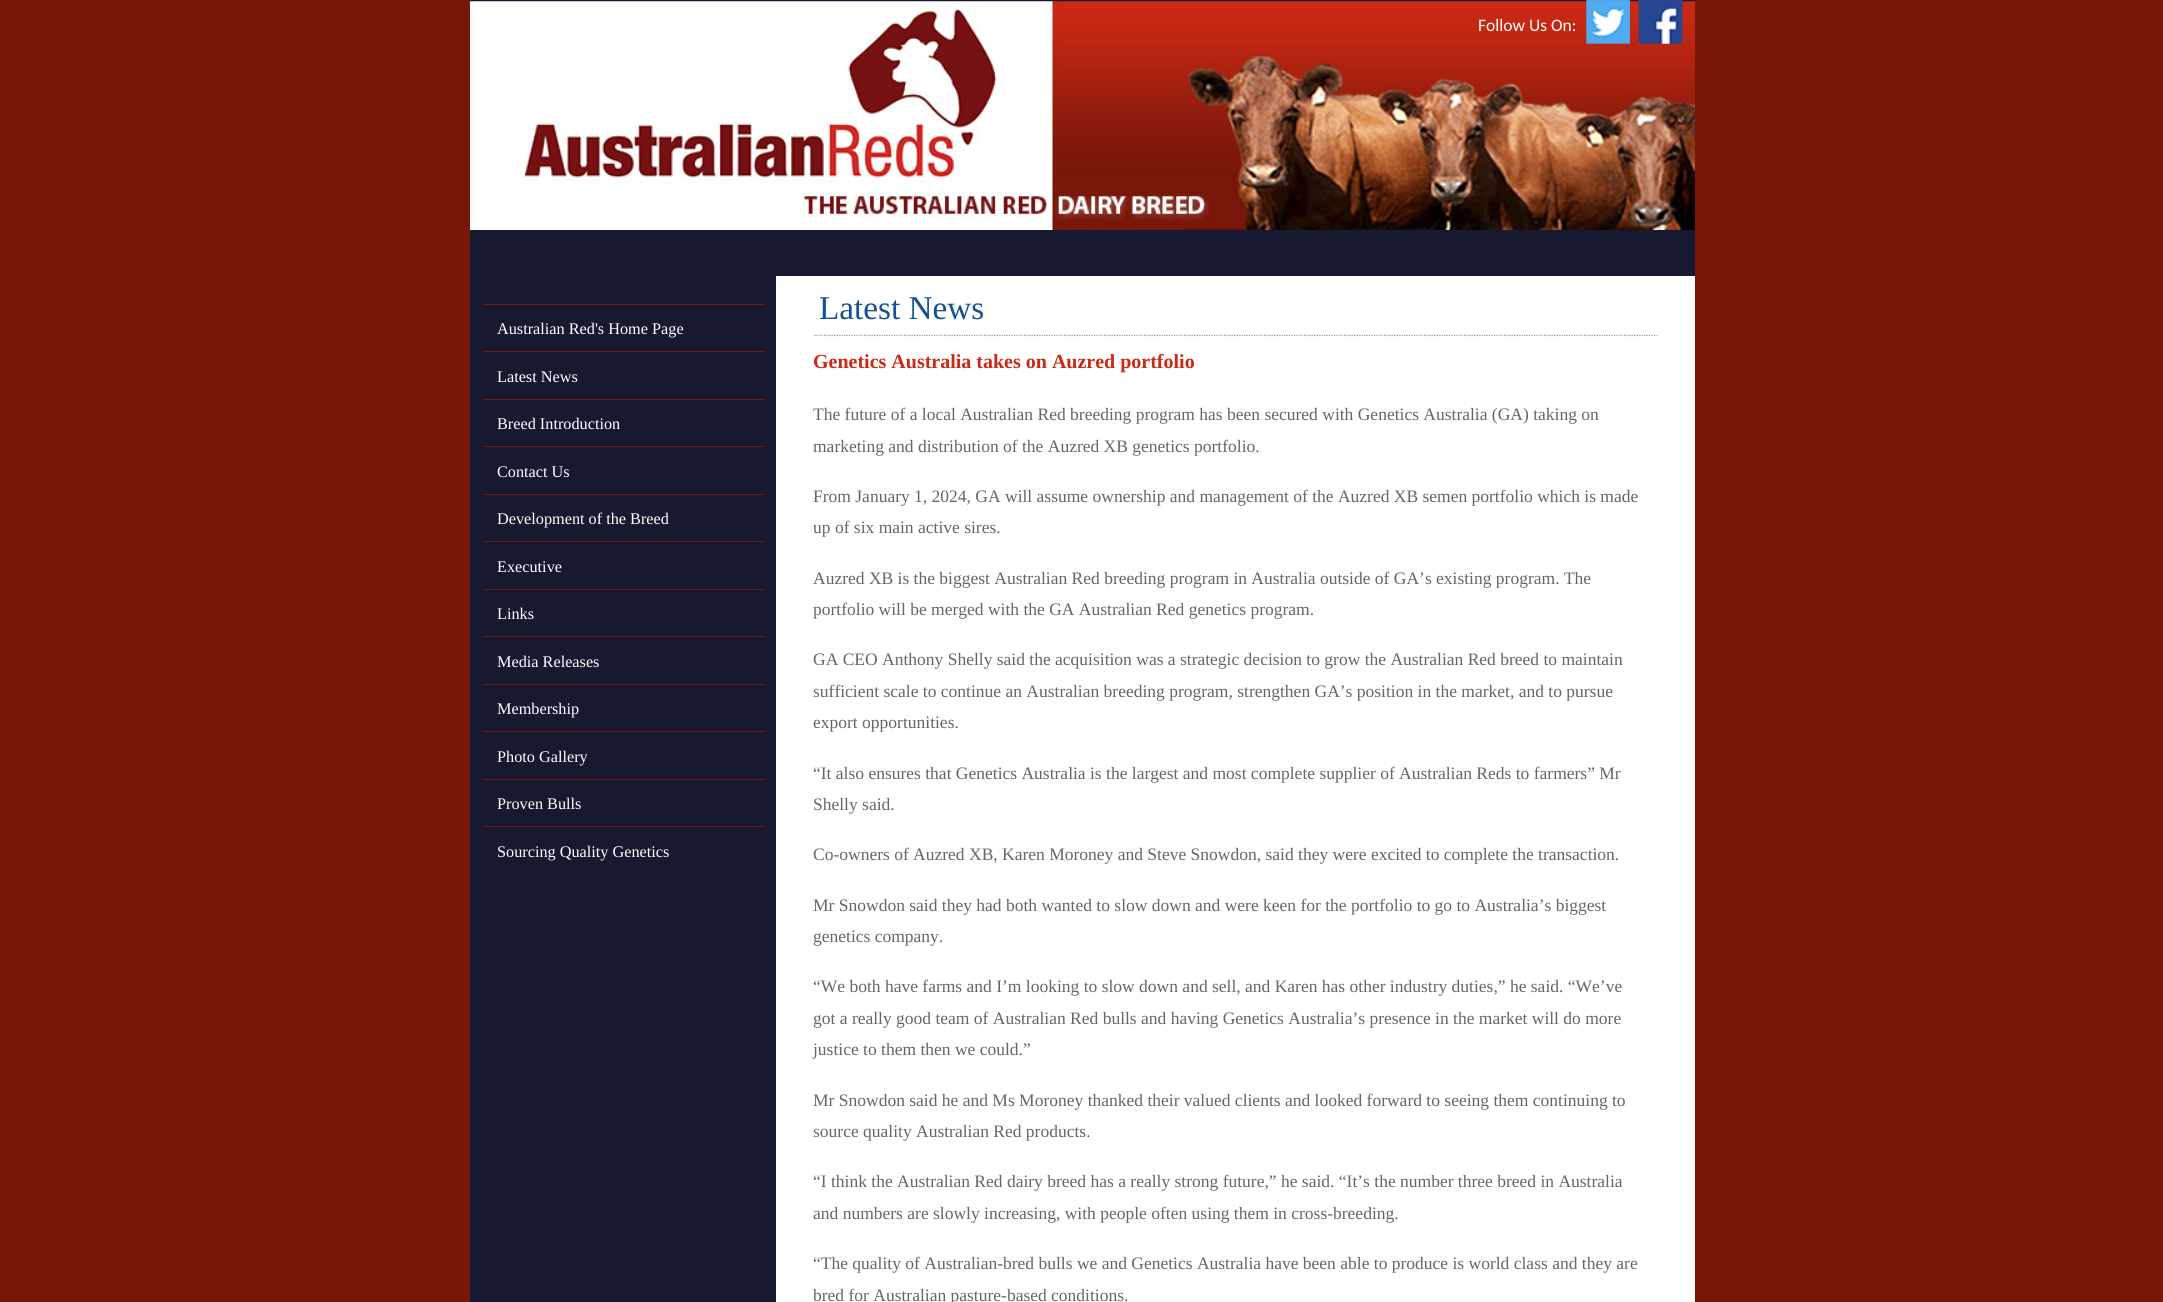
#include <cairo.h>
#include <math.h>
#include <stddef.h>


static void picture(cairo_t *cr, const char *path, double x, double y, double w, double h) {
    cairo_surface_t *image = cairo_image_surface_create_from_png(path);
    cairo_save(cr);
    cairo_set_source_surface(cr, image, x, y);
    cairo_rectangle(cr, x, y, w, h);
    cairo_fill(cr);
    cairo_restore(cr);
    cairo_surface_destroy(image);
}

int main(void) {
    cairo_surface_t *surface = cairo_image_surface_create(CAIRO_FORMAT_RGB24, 2163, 1302);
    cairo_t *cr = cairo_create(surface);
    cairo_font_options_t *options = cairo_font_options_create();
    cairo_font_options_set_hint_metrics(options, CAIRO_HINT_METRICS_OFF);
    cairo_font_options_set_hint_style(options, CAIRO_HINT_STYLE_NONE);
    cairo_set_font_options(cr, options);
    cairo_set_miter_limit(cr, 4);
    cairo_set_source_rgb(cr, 0.471, 0.09, 0.039);
    cairo_paint(cr);
    cairo_set_source_rgb(cr, 0.09, 0.098, 0.192);
    cairo_rectangle(cr, 470, 0, 1225, 1302);
    cairo_fill(cr);
    picture(cr, "img1.png", 470, 1, 1225, 229);
    cairo_select_font_face(cr, "Carlito", CAIRO_FONT_SLANT_NORMAL, CAIRO_FONT_WEIGHT_NORMAL);
    cairo_set_font_size(cr, 17.5);
    cairo_set_source_rgb(cr, 1, 1, 1);
    cairo_move_to(cr, 1478, 31);
    cairo_show_text(cr, "Follow Us On:");
    picture(cr, "img2.png", 1586, 0, 44, 44);
    picture(cr, "img3.png", 1638, 0, 45, 44);
    cairo_set_source_rgb(cr, 0.471, 0.09, 0.039);
    cairo_rectangle(cr, 483, 304, 281, 1);
    cairo_fill(cr);
    cairo_select_font_face(cr, "Liberation Serif", CAIRO_FONT_SLANT_NORMAL, CAIRO_FONT_WEIGHT_NORMAL);
    cairo_set_font_size(cr, 16.25);
    cairo_set_source_rgb(cr, 1, 1, 1);
    cairo_move_to(cr, 497, 334);
    cairo_show_text(cr, "Australian Red's Home Page");
    cairo_set_source_rgb(cr, 0.471, 0.09, 0.039);
    cairo_rectangle(cr, 483, 351, 281, 1);
    cairo_fill(cr);
    cairo_set_source_rgb(cr, 1, 1, 1);
    cairo_move_to(cr, 497, 382);
    cairo_show_text(cr, "Latest News");
    cairo_set_source_rgb(cr, 0.471, 0.09, 0.039);
    cairo_rectangle(cr, 483, 399, 281, 1);
    cairo_fill(cr);
    cairo_set_source_rgb(cr, 1, 1, 1);
    cairo_move_to(cr, 497, 429);
    cairo_show_text(cr, "Breed Introduction");
    cairo_set_source_rgb(cr, 0.471, 0.09, 0.039);
    cairo_rectangle(cr, 483, 446, 281, 1);
    cairo_fill(cr);
    cairo_set_source_rgb(cr, 1, 1, 1);
    cairo_move_to(cr, 497, 477);
    cairo_show_text(cr, "Contact Us");
    cairo_set_source_rgb(cr, 0.471, 0.09, 0.039);
    cairo_rectangle(cr, 483, 494, 281, 1);
    cairo_fill(cr);
    cairo_set_source_rgb(cr, 1, 1, 1);
    cairo_move_to(cr, 497, 524);
    cairo_show_text(cr, "Development of the Breed");
    cairo_set_source_rgb(cr, 0.471, 0.09, 0.039);
    cairo_rectangle(cr, 483, 541, 281, 1);
    cairo_fill(cr);
    cairo_set_source_rgb(cr, 1, 1, 1);
    cairo_move_to(cr, 497, 572);
    cairo_show_text(cr, "Executive");
    cairo_set_source_rgb(cr, 0.471, 0.09, 0.039);
    cairo_rectangle(cr, 483, 589, 281, 1);
    cairo_fill(cr);
    cairo_set_source_rgb(cr, 1, 1, 1);
    cairo_move_to(cr, 497, 619);
    cairo_show_text(cr, "Links");
    cairo_set_source_rgb(cr, 0.471, 0.09, 0.039);
    cairo_rectangle(cr, 483, 636, 281, 1);
    cairo_fill(cr);
    cairo_set_source_rgb(cr, 1, 1, 1);
    cairo_move_to(cr, 497, 667);
    cairo_show_text(cr, "Media Releases");
    cairo_set_source_rgb(cr, 0.471, 0.09, 0.039);
    cairo_rectangle(cr, 483, 684, 281, 1);
    cairo_fill(cr);
    cairo_set_source_rgb(cr, 1, 1, 1);
    cairo_move_to(cr, 497, 714);
    cairo_show_text(cr, "Membership");
    cairo_set_source_rgb(cr, 0.471, 0.09, 0.039);
    cairo_rectangle(cr, 483, 731, 281, 1);
    cairo_fill(cr);
    cairo_set_source_rgb(cr, 1, 1, 1);
    cairo_move_to(cr, 497, 762);
    cairo_show_text(cr, "Photo Gallery");
    cairo_set_source_rgb(cr, 0.471, 0.09, 0.039);
    cairo_rectangle(cr, 483, 779, 281, 1);
    cairo_fill(cr);
    cairo_set_source_rgb(cr, 1, 1, 1);
    cairo_move_to(cr, 497, 809);
    cairo_show_text(cr, "Proven Bulls");
    cairo_set_source_rgb(cr, 0.471, 0.09, 0.039);
    cairo_rectangle(cr, 483, 826, 281, 1);
    cairo_fill(cr);
    cairo_set_source_rgb(cr, 1, 1, 1);
    cairo_move_to(cr, 497, 857);
    cairo_show_text(cr, "Sourcing Quality Genetics");
    cairo_rectangle(cr, 776, 276, 919, 1026);
    cairo_fill(cr);
    cairo_new_path(cr);
    cairo_move_to(cr, 814, 335.5);
    cairo_line_to(cr, 1657.5, 335.5);
    cairo_set_source_rgb(cr, 0.6, 0.6, 0.6);
    cairo_set_line_width(cr, 1.2);
    cairo_set_dash(cr, (double[]){1.25, 1.25}, 2, 0);
    cairo_stroke(cr);
    cairo_set_font_size(cr, 33.25);
    cairo_set_source_rgb(cr, 0.075, 0.322, 0.576);
    cairo_move_to(cr, 819, 319);
    cairo_show_text(cr, "Latest News");
    cairo_select_font_face(cr, "Liberation Serif", CAIRO_FONT_SLANT_NORMAL, CAIRO_FONT_WEIGHT_BOLD);
    cairo_set_font_size(cr, 20);
    cairo_set_source_rgb(cr, 0.796, 0.161, 0.075);
    cairo_move_to(cr, 813, 368);
    cairo_show_text(cr, "Genetics Australia takes on Auzred portfolio");
    cairo_select_font_face(cr, "Liberation Serif", CAIRO_FONT_SLANT_NORMAL, CAIRO_FONT_WEIGHT_NORMAL);
    cairo_set_font_size(cr, 17.5);
    cairo_set_source_rgb(cr, 0.4, 0.4, 0.4);
    cairo_move_to(cr, 813, 420);
    cairo_show_text(cr, "The future of a local Australian Red breeding program has been secured with Genetics Australia (GA) taking on");
    cairo_move_to(cr, 813, 452);
    cairo_show_text(cr, "marketing and distribution of the Auzred XB genetics portfolio.");
    cairo_move_to(cr, 813, 502);
    cairo_show_text(cr, "From January 1, 2024, GA will assume ownership and management of the Auzred XB semen portfolio which is made");
    cairo_move_to(cr, 813, 533);
    cairo_show_text(cr, "up of six main active sires.");
    cairo_move_to(cr, 813, 584);
    cairo_show_text(cr, "Auzred XB is the biggest Australian Red breeding program in Australia outside of GA’s existing program. The");
    cairo_move_to(cr, 813, 615);
    cairo_show_text(cr, "portfolio will be merged with the GA Australian Red genetics program.");
    cairo_move_to(cr, 813, 665);
    cairo_show_text(cr, "GA CEO Anthony Shelly said the acquisition was a strategic decision to grow the Australian Red breed to maintain");
    cairo_move_to(cr, 813, 697);
    cairo_show_text(cr, "sufficient scale to continue an Australian breeding program, strengthen GA’s position in the market, and to pursue");
    cairo_move_to(cr, 813, 728);
    cairo_show_text(cr, "export opportunities.");
    cairo_move_to(cr, 813, 779);
    cairo_show_text(cr, "“It also ensures that Genetics Australia is the largest and most complete supplier of Australian Reds to farmers” Mr");
    cairo_move_to(cr, 813, 810);
    cairo_show_text(cr, "Shelly said.");
    cairo_move_to(cr, 813, 860);
    cairo_show_text(cr, "Co-owners of Auzred XB, Karen Moroney and Steve Snowdon, said they were excited to complete the transaction.");
    cairo_move_to(cr, 813, 911);
    cairo_show_text(cr, "Mr Snowdon said they had both wanted to slow down and were keen for the portfolio to go to Australia’s biggest");
    cairo_move_to(cr, 813, 942);
    cairo_show_text(cr, "genetics company.");
    cairo_move_to(cr, 813, 992);
    cairo_show_text(cr, "“We both have farms and I’m looking to slow down and sell, and Karen has other industry duties,” he said. “We’ve");
    cairo_move_to(cr, 813, 1024);
    cairo_show_text(cr, "got a really good team of Australian Red bulls and having Genetics Australia’s presence in the market will do more");
    cairo_move_to(cr, 813, 1055);
    cairo_show_text(cr, "justice to them then we could.”");
    cairo_move_to(cr, 813, 1106);
    cairo_show_text(cr, "Mr Snowdon said he and Ms Moroney thanked their valued clients and looked forward to seeing them continuing to");
    cairo_move_to(cr, 813, 1137);
    cairo_show_text(cr, "source quality Australian Red products.");
    cairo_move_to(cr, 813, 1187);
    cairo_show_text(cr, "“I think the Australian Red dairy breed has a really strong future,” he said. “It’s the number three breed in Australia");
    cairo_move_to(cr, 813, 1219);
    cairo_show_text(cr, "and numbers are slowly increasing, with people often using them in cross-breeding.");
    cairo_move_to(cr, 813, 1269);
    cairo_show_text(cr, "“The quality of Australian-bred bulls we and Genetics Australia have been able to produce is world class and they are");
    cairo_move_to(cr, 813, 1301);
    cairo_show_text(cr, "bred for Australian pasture-based conditions.");
    cairo_surface_write_to_png(surface, "page.png");
    cairo_font_options_destroy(options);
    cairo_destroy(cr);
    cairo_surface_destroy(surface);
    return 0;
}
